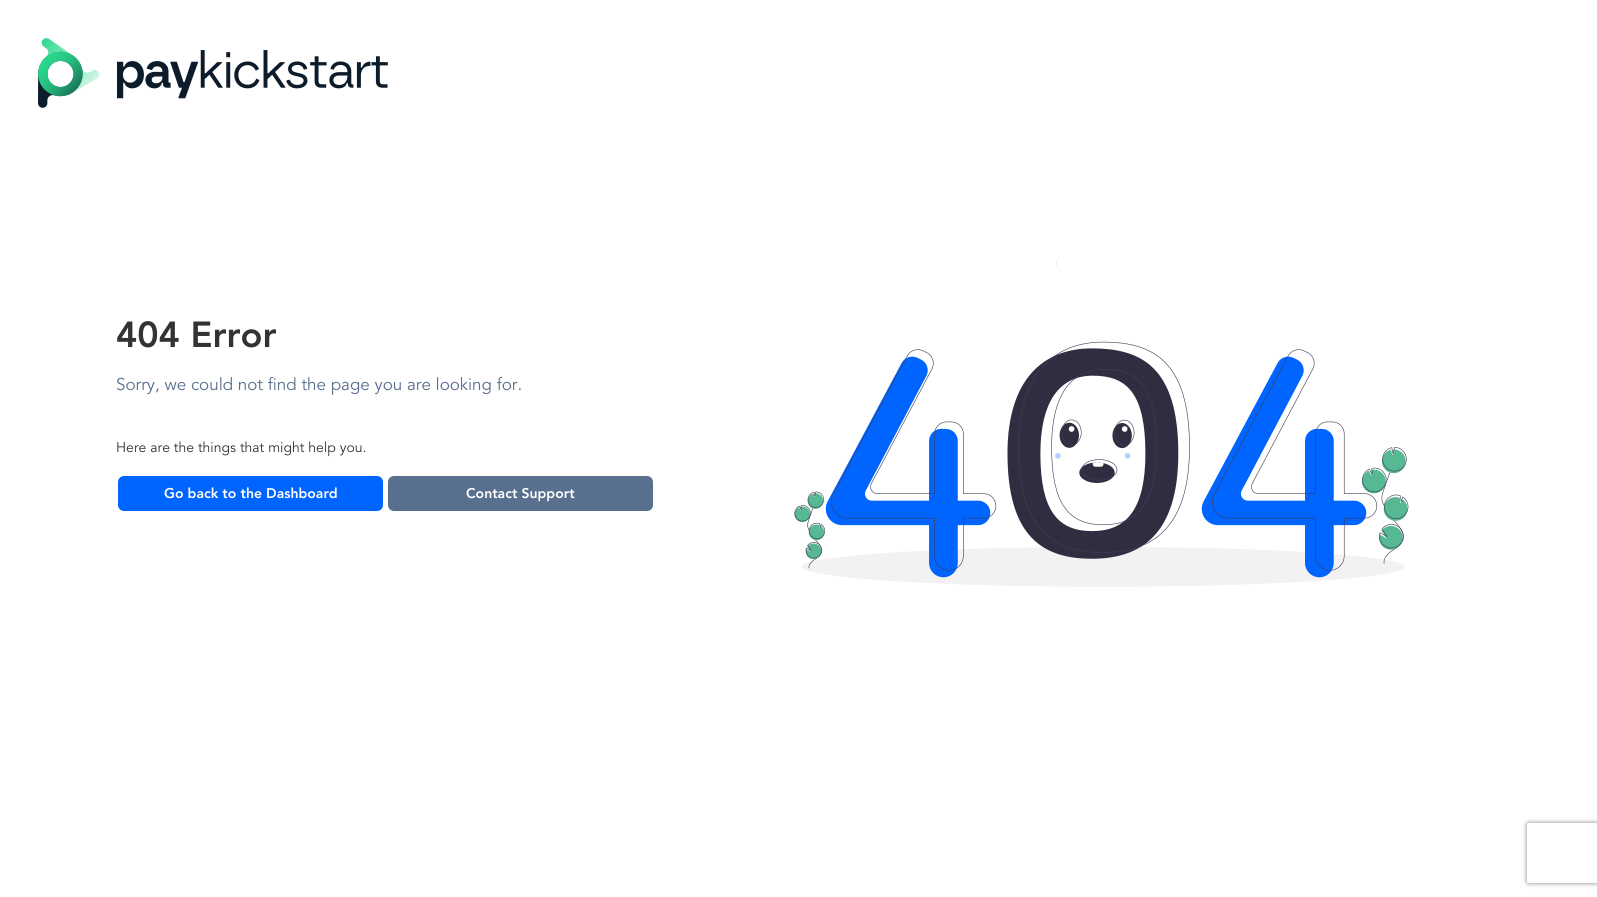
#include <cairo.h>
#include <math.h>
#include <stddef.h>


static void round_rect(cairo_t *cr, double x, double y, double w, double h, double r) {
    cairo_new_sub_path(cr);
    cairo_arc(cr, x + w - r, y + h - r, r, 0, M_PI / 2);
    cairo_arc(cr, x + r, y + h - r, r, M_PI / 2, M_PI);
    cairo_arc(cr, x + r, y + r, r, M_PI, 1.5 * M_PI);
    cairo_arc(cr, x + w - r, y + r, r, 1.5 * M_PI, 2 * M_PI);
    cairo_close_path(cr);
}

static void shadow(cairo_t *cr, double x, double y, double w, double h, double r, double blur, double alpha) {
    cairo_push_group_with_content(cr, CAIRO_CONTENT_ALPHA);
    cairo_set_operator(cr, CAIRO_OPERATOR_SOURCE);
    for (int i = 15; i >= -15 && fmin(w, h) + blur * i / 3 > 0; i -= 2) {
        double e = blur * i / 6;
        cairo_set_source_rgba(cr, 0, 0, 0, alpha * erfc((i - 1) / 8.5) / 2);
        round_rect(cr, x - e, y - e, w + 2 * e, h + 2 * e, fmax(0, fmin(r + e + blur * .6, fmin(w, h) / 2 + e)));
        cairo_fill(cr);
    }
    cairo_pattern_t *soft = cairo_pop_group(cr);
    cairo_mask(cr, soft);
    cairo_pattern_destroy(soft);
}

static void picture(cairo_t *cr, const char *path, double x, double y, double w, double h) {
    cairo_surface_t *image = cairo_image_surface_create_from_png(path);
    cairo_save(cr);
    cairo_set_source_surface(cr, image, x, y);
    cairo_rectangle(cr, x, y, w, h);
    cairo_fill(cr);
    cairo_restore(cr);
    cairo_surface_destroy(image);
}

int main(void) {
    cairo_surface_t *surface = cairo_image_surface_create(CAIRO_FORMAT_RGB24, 1597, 897);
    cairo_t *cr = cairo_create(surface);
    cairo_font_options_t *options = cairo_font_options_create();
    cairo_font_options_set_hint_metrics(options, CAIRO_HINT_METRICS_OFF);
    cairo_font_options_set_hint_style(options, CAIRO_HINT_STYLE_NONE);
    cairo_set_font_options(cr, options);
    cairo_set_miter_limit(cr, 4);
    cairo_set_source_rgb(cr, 1, 1, 1);
    cairo_paint(cr);
    picture(cr, "img1.png", 38, 38, 350, 70);
    cairo_select_font_face(cr, "Avenir Black", CAIRO_FONT_SLANT_NORMAL, CAIRO_FONT_WEIGHT_NORMAL);
    cairo_set_font_size(cr, 36);
    cairo_set_source_rgb(cr, 0.2, 0.2, 0.2);
    cairo_move_to(cr, 116, 347);
    cairo_show_text(cr, "404 Error");
    cairo_select_font_face(cr, "Avenir", CAIRO_FONT_SLANT_NORMAL, CAIRO_FONT_WEIGHT_NORMAL);
    cairo_set_font_size(cr, 17);
    cairo_set_source_rgb(cr, 0.349, 0.435, 0.557);
    cairo_move_to(cr, 116, 390);
    cairo_show_text(cr, "Sorry, we could not find the page you are looking for.");
    cairo_set_font_size(cr, 14);
    cairo_set_source_rgb(cr, 0.2, 0.2, 0.2);
    cairo_move_to(cr, 116, 452);
    cairo_show_text(cr, "Here are the things that might help you.");
    cairo_set_source_rgb(cr, 0, 0.392, 1);
    round_rect(cr, 118, 476, 265, 35, 6);
    cairo_fill(cr);
    cairo_select_font_face(cr, "Avenir Black", CAIRO_FONT_SLANT_NORMAL, CAIRO_FONT_WEIGHT_NORMAL);
    cairo_set_source_rgb(cr, 1, 1, 1);
    cairo_move_to(cr, 164, 498);
    cairo_show_text(cr, "Go back to the Dashboard");
    cairo_set_source_rgb(cr, 0.349, 0.435, 0.557);
    round_rect(cr, 388, 476, 265, 35, 6);
    cairo_fill(cr);
    cairo_set_source_rgb(cr, 1, 1, 1);
    cairo_move_to(cr, 466, 498);
    cairo_show_text(cr, "Contact Support");
    picture(cr, "img2.png", 794, 257, 615, 330);
    cairo_save(cr);
    cairo_set_fill_rule(cr, CAIRO_FILL_RULE_EVEN_ODD);
    cairo_new_path(cr);
    cairo_move_to(cr, 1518, 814);
    cairo_line_to(cr, 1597, 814);
    cairo_line_to(cr, 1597, 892);
    cairo_line_to(cr, 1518, 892);
    cairo_close_path(cr);
    cairo_move_to(cr, 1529, 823);
    cairo_line_to(cr, 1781, 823);
    cairo_curve_to(cr, 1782, 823, 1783, 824, 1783, 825);
    cairo_line_to(cr, 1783, 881);
    cairo_curve_to(cr, 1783, 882, 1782, 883, 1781, 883);
    cairo_line_to(cr, 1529, 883);
    cairo_curve_to(cr, 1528, 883, 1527, 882, 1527, 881);
    cairo_line_to(cr, 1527, 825);
    cairo_curve_to(cr, 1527, 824, 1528, 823, 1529, 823);
    cairo_close_path(cr);
    cairo_clip(cr);
    cairo_set_source_rgb(cr, 0.502, 0.502, 0.502);
    shadow(cr, 1527, 823, 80, 60, 2, 2.5, 1);
    cairo_restore(cr);
    cairo_surface_write_to_png(surface, "page.png");
    cairo_font_options_destroy(options);
    cairo_destroy(cr);
    cairo_surface_destroy(surface);
    return 0;
}
